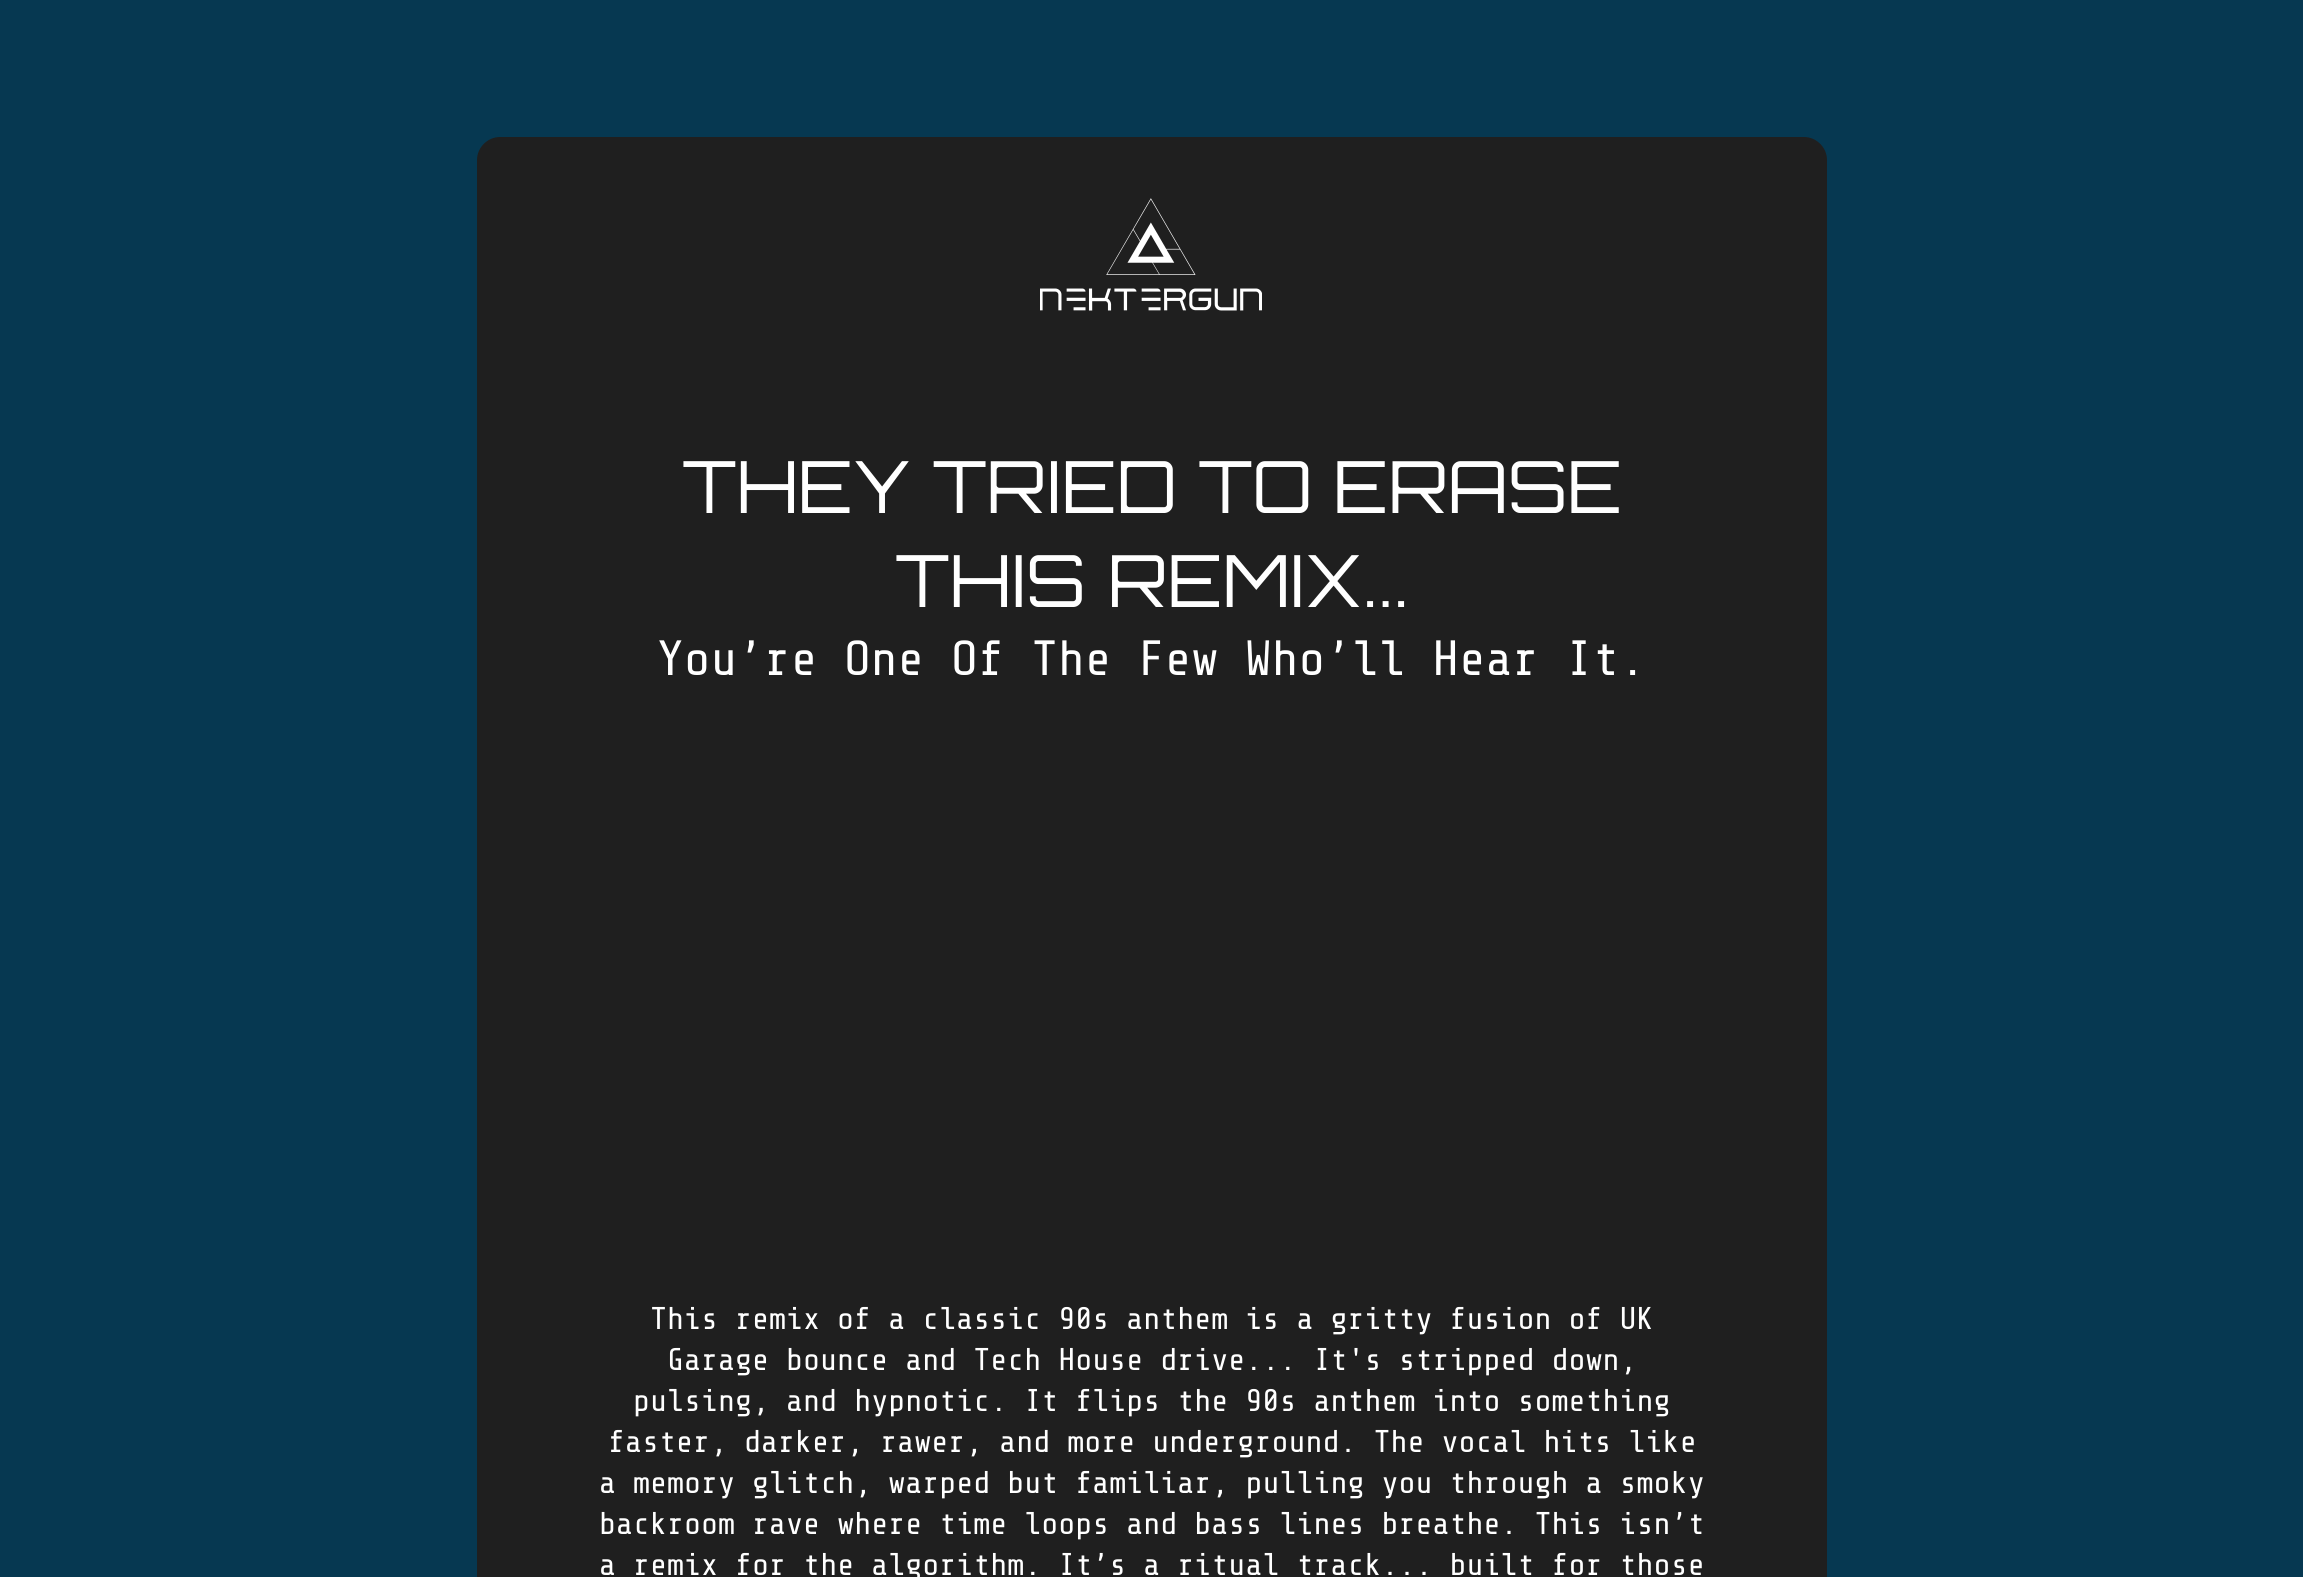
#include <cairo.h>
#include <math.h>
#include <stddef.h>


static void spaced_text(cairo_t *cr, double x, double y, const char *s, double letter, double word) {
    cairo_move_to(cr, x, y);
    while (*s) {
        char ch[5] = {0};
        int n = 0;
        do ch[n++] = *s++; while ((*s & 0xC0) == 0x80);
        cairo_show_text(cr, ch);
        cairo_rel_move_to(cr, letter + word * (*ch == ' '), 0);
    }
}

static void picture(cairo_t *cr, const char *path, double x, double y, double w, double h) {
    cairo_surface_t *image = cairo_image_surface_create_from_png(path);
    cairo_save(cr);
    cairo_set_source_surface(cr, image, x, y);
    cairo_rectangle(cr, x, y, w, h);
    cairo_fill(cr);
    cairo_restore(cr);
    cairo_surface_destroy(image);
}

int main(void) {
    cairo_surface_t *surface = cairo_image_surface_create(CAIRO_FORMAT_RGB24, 2303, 1577);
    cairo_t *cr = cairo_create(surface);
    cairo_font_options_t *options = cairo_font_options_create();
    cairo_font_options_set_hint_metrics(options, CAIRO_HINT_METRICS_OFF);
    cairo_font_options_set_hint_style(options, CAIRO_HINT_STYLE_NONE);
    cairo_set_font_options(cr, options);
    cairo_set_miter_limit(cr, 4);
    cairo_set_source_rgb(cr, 0.024, 0.22, 0.318);
    cairo_paint(cr);
    cairo_set_source_rgb(cr, 0.122, 0.122, 0.122);
    cairo_new_path(cr);
    cairo_move_to(cr, 500, 137);
    cairo_line_to(cr, 1804, 137);
    cairo_curve_to(cr, 1816.5, 137, 1827, 147.5, 1827, 160);
    cairo_line_to(cr, 1827, 371);
    cairo_line_to(cr, 477, 371);
    cairo_line_to(cr, 477, 160);
    cairo_curve_to(cr, 477, 147.5, 487.5, 137, 500, 137);
    cairo_close_path(cr);
    cairo_fill(cr);
    picture(cr, "img1.png", 1040, 198, 222, 113);
    cairo_rectangle(cr, 477, 371, 1350, 1206);
    cairo_fill(cr);
    cairo_select_font_face(cr, "Orbitron", CAIRO_FONT_SLANT_NORMAL, CAIRO_FONT_WEIGHT_NORMAL);
    cairo_set_font_size(cr, 72);
    cairo_set_source_rgb(cr, 1, 1, 1);
    spaced_text(cr, 682, 513, "THEY TRIED TO ERASE", 0, 1.5);
    spaced_text(cr, 895, 607, "THIS REMIX...", 0, 3);
    cairo_select_font_face(cr, "Share Tech Mono", CAIRO_FONT_SLANT_NORMAL, CAIRO_FONT_WEIGHT_NORMAL);
    cairo_set_font_size(cr, 49.5);
    cairo_move_to(cr, 657, 675);
    cairo_show_text(cr, "You’re One Of The Few Who’ll Hear It.");
    cairo_set_font_size(cr, 31.5);
    cairo_move_to(cr, 650, 1329);
    cairo_show_text(cr, "This remix of a classic 90s anthem is a gritty fusion of UK");
    cairo_move_to(cr, 667, 1370);
    cairo_show_text(cr, "Garage bounce and Tech House drive... It's stripped down,");
    cairo_move_to(cr, 633, 1411);
    cairo_show_text(cr, "pulsing, and hypnotic. It flips the 90s anthem into something");
    cairo_move_to(cr, 608, 1452);
    cairo_show_text(cr, "faster, darker, rawer, and more underground. The vocal hits like");
    cairo_move_to(cr, 599, 1493);
    cairo_show_text(cr, "a memory glitch, warped but familiar, pulling you through a smoky");
    cairo_move_to(cr, 599, 1534);
    cairo_show_text(cr, "backroom rave where time loops and bass lines breathe. This isn’t");
    cairo_move_to(cr, 599, 1575);
    cairo_show_text(cr, "a remix for the algorithm. It’s a ritual track... built for those");
    cairo_surface_write_to_png(surface, "page.png");
    cairo_font_options_destroy(options);
    cairo_destroy(cr);
    cairo_surface_destroy(surface);
    return 0;
}
